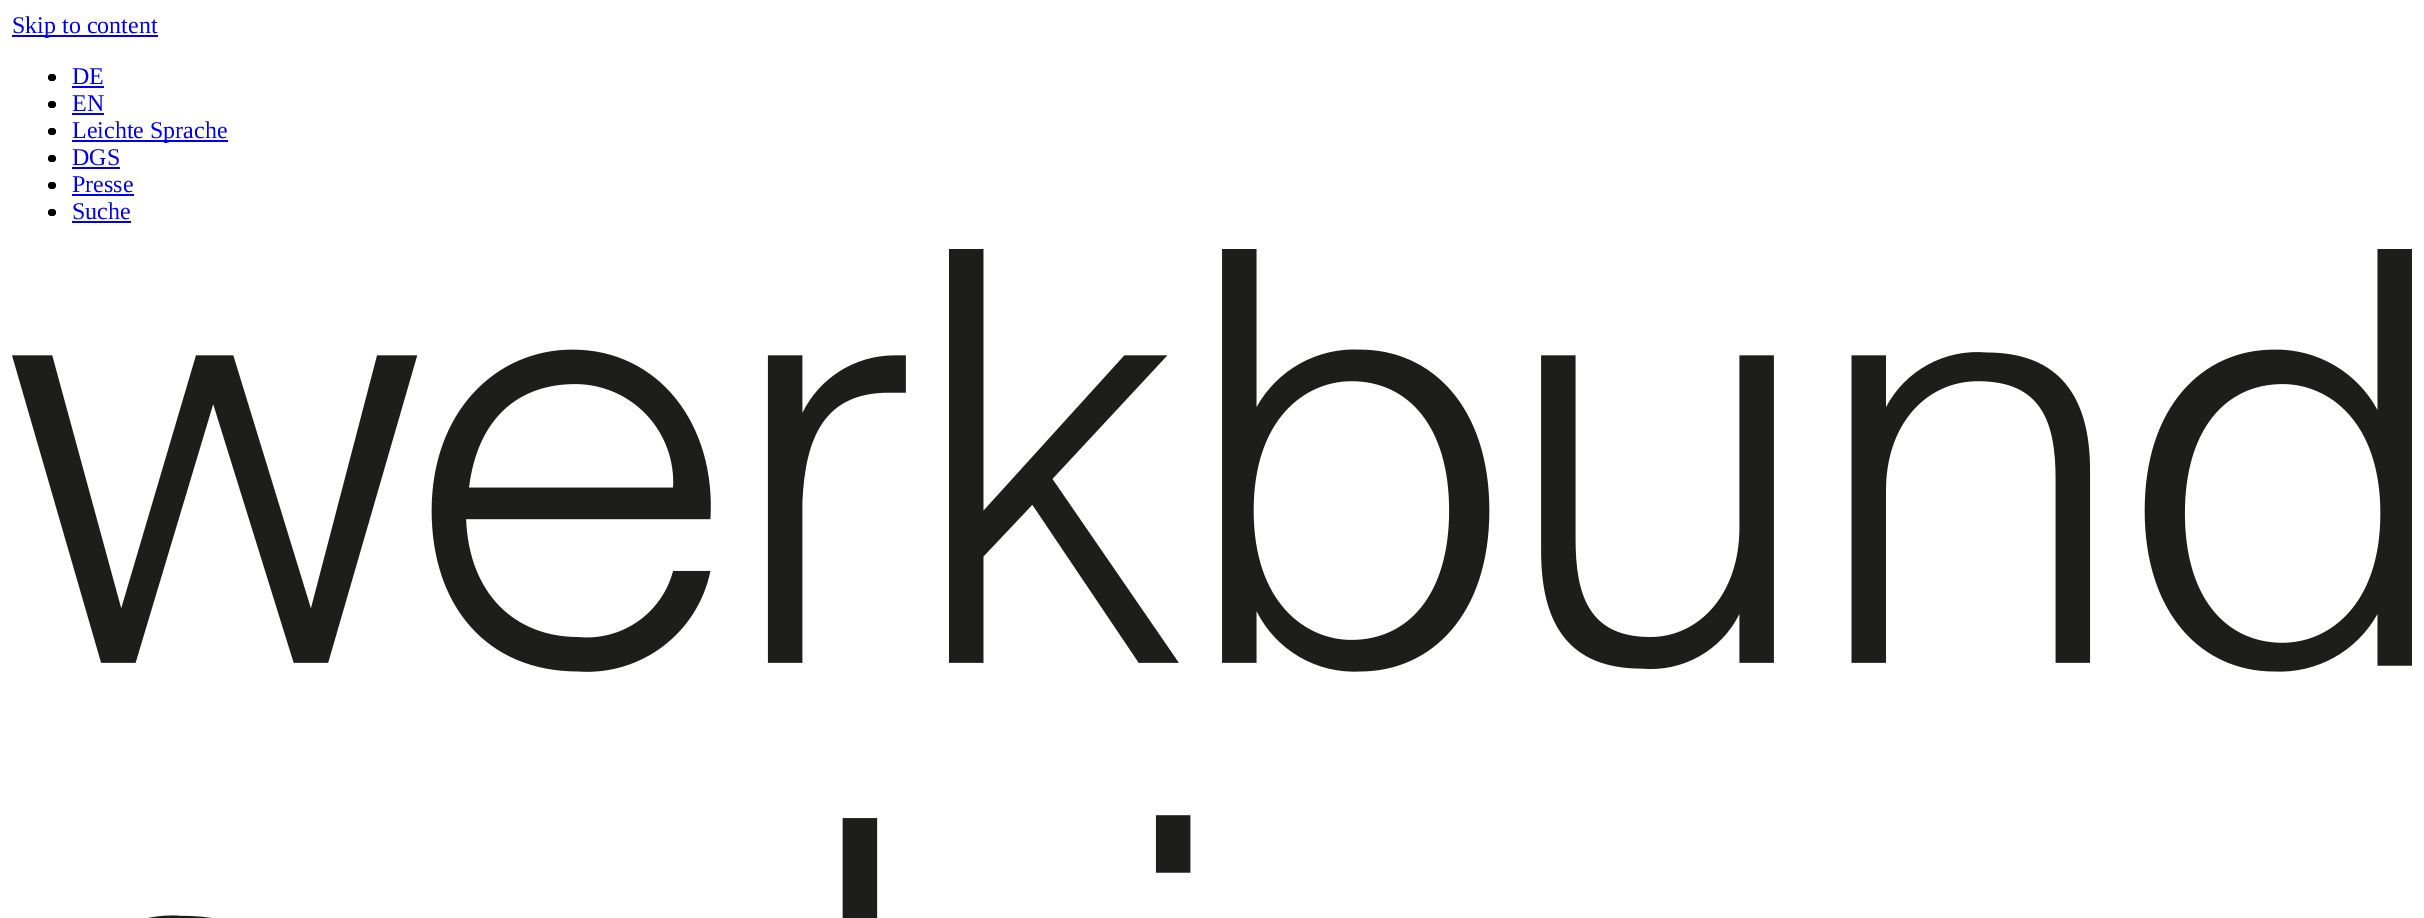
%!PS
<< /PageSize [2424 918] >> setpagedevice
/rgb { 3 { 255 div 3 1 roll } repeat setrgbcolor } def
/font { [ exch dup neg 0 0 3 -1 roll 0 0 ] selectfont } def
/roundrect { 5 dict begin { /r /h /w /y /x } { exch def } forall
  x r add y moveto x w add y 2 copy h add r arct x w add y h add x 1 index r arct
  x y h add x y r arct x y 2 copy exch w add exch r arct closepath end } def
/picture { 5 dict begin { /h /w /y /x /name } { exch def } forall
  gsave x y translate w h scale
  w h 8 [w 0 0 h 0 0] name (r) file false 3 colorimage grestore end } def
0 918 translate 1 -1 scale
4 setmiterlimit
255 255 255 rgb
0 0 2424 918 rectfill
0 0 238 rgb
12 35 146 2 rectfill
0 0 0 rgb
48 74 8 7 3.5 roundrect fill
0 0 238 rgb
72 86 32 2 rectfill
0 0 0 rgb
48 101 8 7 3.5 roundrect fill
0 0 238 rgb
72 113 32 2 rectfill
0 0 0 rgb
48 128 8 7 3.5 roundrect fill
0 0 238 rgb
72 140 156 2 rectfill
0 0 0 rgb
48 155 8 7 3.5 roundrect fill
0 0 238 rgb
72 167 48 2 rectfill
0 0 0 rgb
48 182 8 7 3.5 roundrect fill
0 0 238 rgb
72 194 62 2 rectfill
0 0 0 rgb
48 209 8 7 3.5 roundrect fill
0 0 238 rgb
72 221 59 2 rectfill
(img/1.rgb) 12 249 2400 669 picture
/LiberationSerif-Regular 24 font
[
  [(Skip to content) 12 33]
  [(DE) 72 84]
  [(EN) 72 111]
  [(Leichte Sprache) 72 138]
  [(DGS) 72 165]
  [(Presse) 72 192]
  [(Suche) 72 219]
] { aload pop moveto show } forall
showpage
